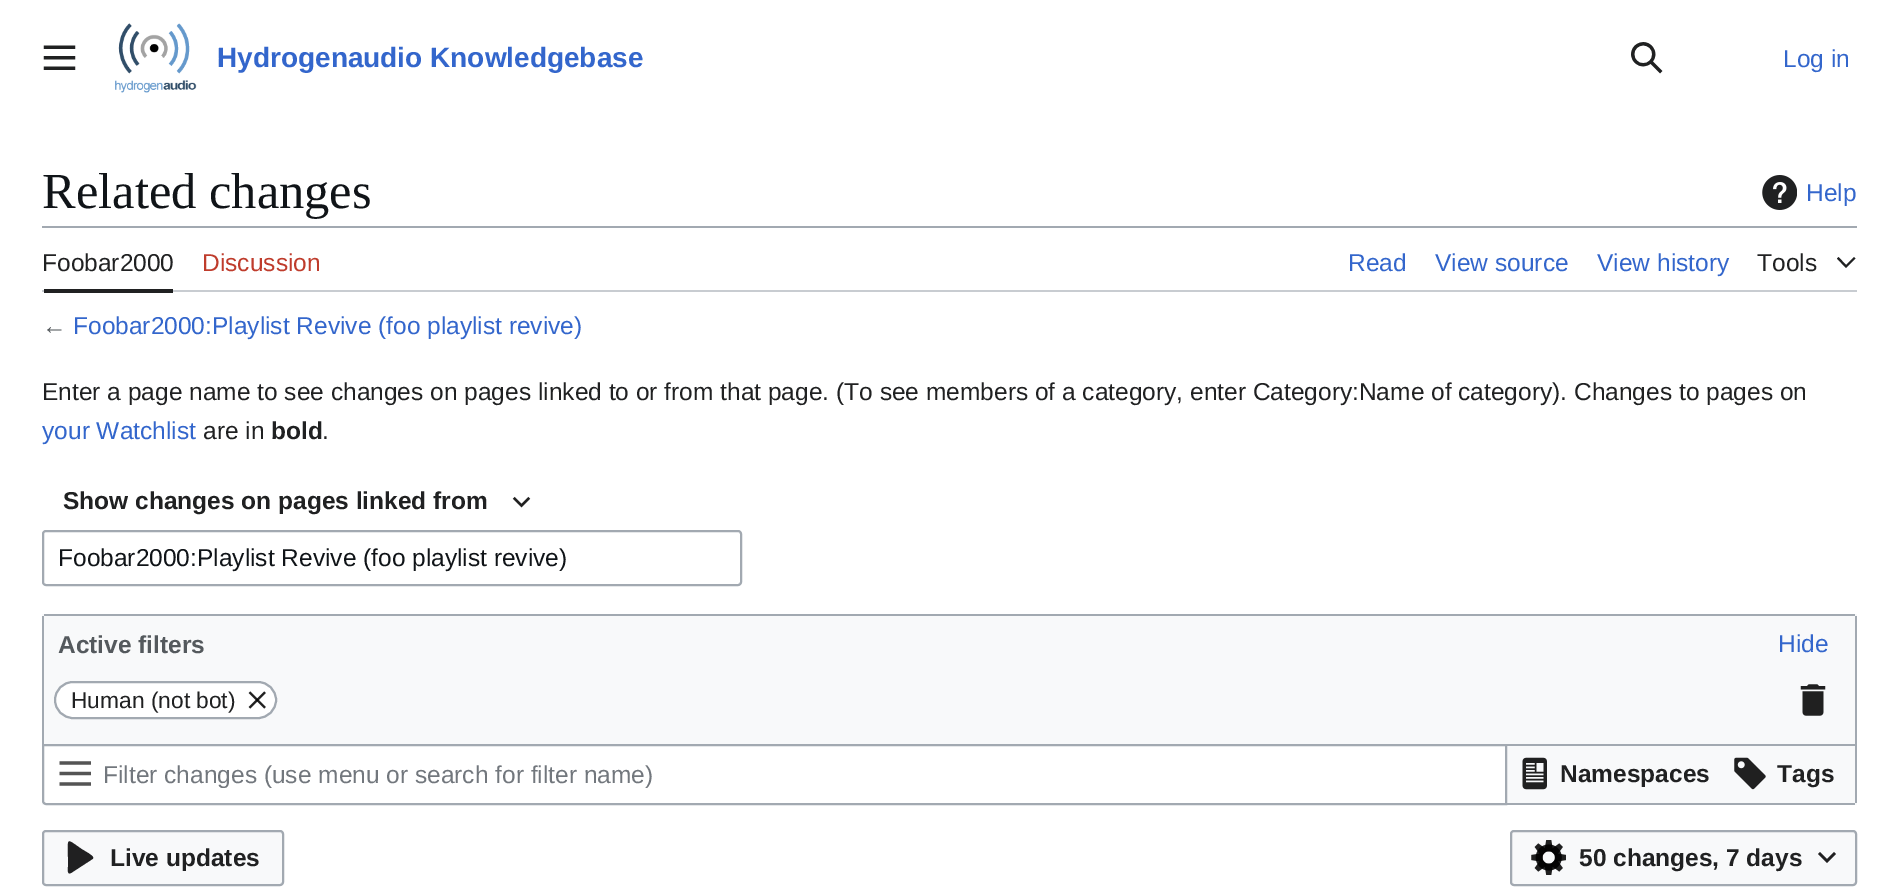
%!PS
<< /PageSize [1898 890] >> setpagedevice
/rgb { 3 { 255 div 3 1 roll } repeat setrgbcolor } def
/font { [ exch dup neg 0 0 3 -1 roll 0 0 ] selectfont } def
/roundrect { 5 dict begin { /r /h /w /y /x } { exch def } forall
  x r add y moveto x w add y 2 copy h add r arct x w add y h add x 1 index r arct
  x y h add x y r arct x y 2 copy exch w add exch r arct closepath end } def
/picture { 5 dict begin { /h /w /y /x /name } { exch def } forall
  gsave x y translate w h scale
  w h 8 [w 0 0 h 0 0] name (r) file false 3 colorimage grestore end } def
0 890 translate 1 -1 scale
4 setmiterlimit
255 255 255 rgb
0 0 1898 890 rectfill
(img/1.rgb) 43 45 33 25 picture
(img/2.rgb) 115 23 82 70 picture
(img/3.rgb) 1631 42 32 32 picture
(img/4.rgb) 1762 175 35 35 picture
162 169 177 rgb
42 226 1815 2 rectfill
200 204 209 rgb
42 290 moveto 42 292 lineto 1857 292 lineto 1857 229 lineto 1857 290 lineto closepath fill
32 33 34 rgb
44 289 129 4 rectfill
1854 257 moveto 1846 265 lineto 1838.5 257 lineto 1837 258.5 lineto 1846 268 lineto 1855.5 258.5 lineto closepath fill
(img/5.rgb) 512 496 19 12 picture
162 169 177 rgb
2 setlinewidth
43 531 698 54 3 roundrect stroke
[
  [42 614 1815 191 248 249 250]
  [44 614 1811 2 162 169 177]
  [1855 616 2 128 162 169 177]
  [42 616 2 128 162 169 177]
] { aload pop rgb rectfill } forall
255 255 255 rgb
55 682 221 36 18 roundrect gsave fill grestore
162 169 177 rgb
stroke
(img/6.rgb) 248 691 18 18 picture
(img/7.rgb) 1800 684 26 32 picture
255 255 255 rgb
43 745 moveto 1506 745 lineto 1506 804 lineto 46 804 lineto 44.5 804 43 802.5 43 801 curveto closepath gsave fill grestore
162 169 177 rgb
stroke
(img/8.rgb) 59 761 32 25 picture
[
  [1507 744 350 2 162 169 177]
  [1855 744 2 59 162 169 177]
  [1507 803 348 2 162 169 177]
] { aload pop rgb rectfill } forall
(img/9.rgb) 1522 757 25 33 picture
(img/10.rgb) 1734 757 32 33 picture
248 249 250 rgb
43 831 240 54 3 roundrect gsave fill grestore
162 169 177 rgb
stroke
32 32 33 rgb
71 873 moveto 69.5 873.5 lineto 67 873 68 868 68 867 curveto 68 857.5 lineto 68 837.5 65.5 838 81.5 849 curveto 89 853.5 lineto 89 854 95.5 857 92.5 859 curveto closepath fill
248 249 250 rgb
1511 831 345 54 3 roundrect gsave fill grestore
162 169 177 rgb
stroke
(img/11.rgb) 1531 840 35 35 picture
32 32 33 rgb
1834 852 moveto 1827 859 lineto 1820 852 lineto 1818 854 lineto 1827 863 lineto 1836 854 lineto closepath fill
/LiberationSans-Bold 28 font
51 102 204 rgb
217 67 moveto (Hydrogenaudio Knowledgebase) show
/LiberationSans-Regular 24.5 font
1783 67 moveto (Log in) show
/LiberationSerif-Regular 50.5 font
16 20 24 rgb
42 208 moveto (Related changes) show
/LiberationSans-Regular 24.5 font
51 102 204 rgb
1806 201 moveto (Help) show
32 33 34 rgb
42 271 moveto (Foobar2000) show
191 60 44 rgb
202 271 moveto (Discussion) show
51 102 204 rgb
[
  [(Read) 1348 271]
  [(View source) 1435 271]
  [(View history) 1597 271]
] { aload pop moveto show } forall
32 33 34 rgb
1757 271 moveto (Tools) show
84 89 93 rgb
42 334 moveto (←) show
51 102 204 rgb
73 334 moveto (Foobar2000:Playlist Revive \(foo playlist revive\)) show
32 33 34 rgb
42 400 moveto (Enter a page name to see changes on pages linked to or from that page. \(To see members of a category, enter Category:Name of category\). Changes to pages on) show
51 102 204 rgb
42 439 moveto (your Watchlist) show
32 33 34 rgb
203 439 moveto (are in) show
/LiberationSans-Bold 24.5 font
271 439 moveto (bold) show
/LiberationSans-Regular 24.5 font
322 439 moveto (.) show
/LiberationSans-Bold 24.5 font
63 509 moveto (Show changes on pages linked from) show
/LiberationSans-Regular 24.5 font
16 20 24 rgb
58 566 moveto (Foobar2000:Playlist Revive \(foo playlist revive\)) show
/LiberationSans-Bold 24.5 font
84 89 93 rgb
58 653 moveto (Active filters) show
/LiberationSans-Regular 24.5 font
51 102 204 rgb
1778 652 moveto (Hide) show
/LiberationSans-Regular 22.75 font
32 33 34 rgb
71 708 moveto (Human \(not bot\)) show
gsave
103 760 1388 28 rectclip
/LiberationSans-Regular 24.5 font
114 119 125 rgb
103 783 moveto (Filter changes \(use menu or search for filter name\)) show
grestore
/LiberationSans-Bold 24.5 font
[
  [(Namespaces) 1560 782]
  [(Tags) 1777 782]
  [(Live updates) 110 866]
  [(50 changes, 7 days) 1579 866]
] { aload pop moveto show } forall
showpage
